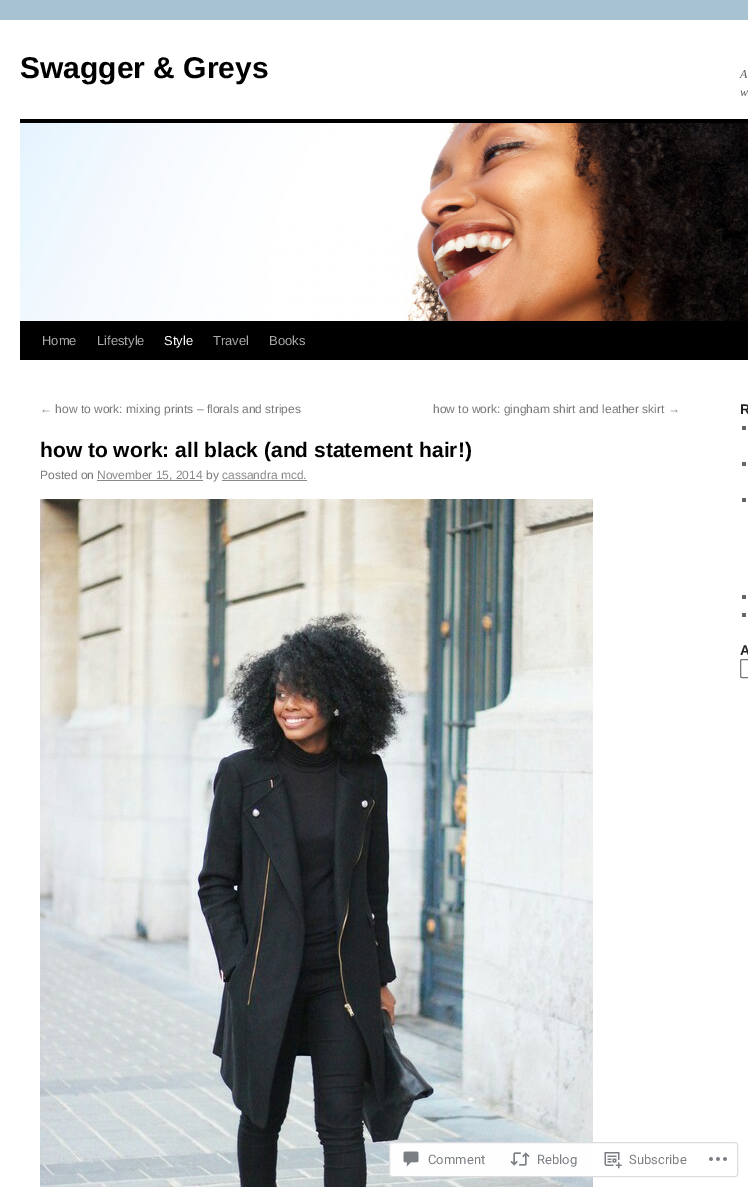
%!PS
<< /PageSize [748 1187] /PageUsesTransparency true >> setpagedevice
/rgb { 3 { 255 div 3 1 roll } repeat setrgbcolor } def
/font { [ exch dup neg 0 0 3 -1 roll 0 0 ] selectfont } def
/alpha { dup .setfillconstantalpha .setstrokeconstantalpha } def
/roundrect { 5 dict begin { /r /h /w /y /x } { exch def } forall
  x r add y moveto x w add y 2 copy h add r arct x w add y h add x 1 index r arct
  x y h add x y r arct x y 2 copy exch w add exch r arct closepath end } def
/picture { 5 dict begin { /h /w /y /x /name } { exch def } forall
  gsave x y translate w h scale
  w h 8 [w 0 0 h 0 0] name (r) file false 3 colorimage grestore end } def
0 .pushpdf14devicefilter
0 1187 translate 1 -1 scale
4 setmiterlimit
167 194 209 rgb
0 0 748 1187 rectfill
[
  [0 20 748 1167 255 255 255]
  [20 119 728 4 0 0 0]
  [20 321 728 39 0 0 0]
] { aload pop rgb rectfill } forall
(img/1.rgb) 20 123 728 198 picture
136 136 136 rgb
97 480 106 1 rectfill
222 480 85 1 rectfill
(img/2.rgb) 40 499 553 688 picture
[
  [742 426 4 4 102 102 102]
  [742 462 4 4 102 102 102]
  [742 498 4 4 102 102 102]
  [742 595 4 4 102 102 102]
  [742 613 4 4 102 102 102]
] { aload pop rgb rectfill } forall
118 118 118 rgb
740.5 659.5 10 18 1.5 roundrect stroke
0.98 alpha
255 255 255 rgb
389 1142 349 35 3 roundrect fill
220 220 222 rgb
389.5 1142.5 348 34 2.5 roundrect stroke
1 alpha
(img/3.rgb) 403 1151 16 16 picture
(img/4.rgb) 510 1152 20 14 picture
(img/5.rgb) 604 1152 18 17 picture
(img/6.rgb) 709 1157 18 4 picture
/LiberationSans-Bold 30 font
0 0 0 rgb
20 78 moveto (Swagger & Greys) show
/LiberationSerif-Italic 12 font
89 89 89 rgb
740 78 moveto (A) show
740 96 moveto (w) show
/LiberationSans-Regular 13 font
170 170 170 rgb
42 345 moveto (Home) show
97 345 moveto (Lifestyle) show
255 255 255 rgb
164 345 moveto (Style) show
170 170 170 rgb
213 345 moveto (Travel) show
269 345 moveto (Books) show
/LiberationSans-Regular 12 font
119 119 119 rgb
40 413 moveto (← how to work: mixing prints – florals and stripes) show
433 413 moveto (how to work: gingham shirt and leather skirt →) show
/LiberationSans-Bold 21 font
0 0 0 rgb
40 457 moveto (how to work: all black \(and statement hair!\)) show
/LiberationSans-Regular 12 font
119 119 119 rgb
40 479 moveto (Posted on) show
136 136 136 rgb
97 479 moveto (November 15, 2014) show
119 119 119 rgb
206 479 moveto (by) show
136 136 136 rgb
222 479 moveto (cassandra mcd.) show
/LiberationSans-Bold 14 font
34 34 34 rgb
740 414 moveto (R) show
740 655 moveto (A) show
/Roboto-Regular 13 font
123 127 132 rgb
[
  [(Comment) 428 1164]
  [(Reblog) 537 1164]
  [(Subscribe) 629 1164]
] { aload pop moveto show } forall
.poppdf14devicefilter showpage
